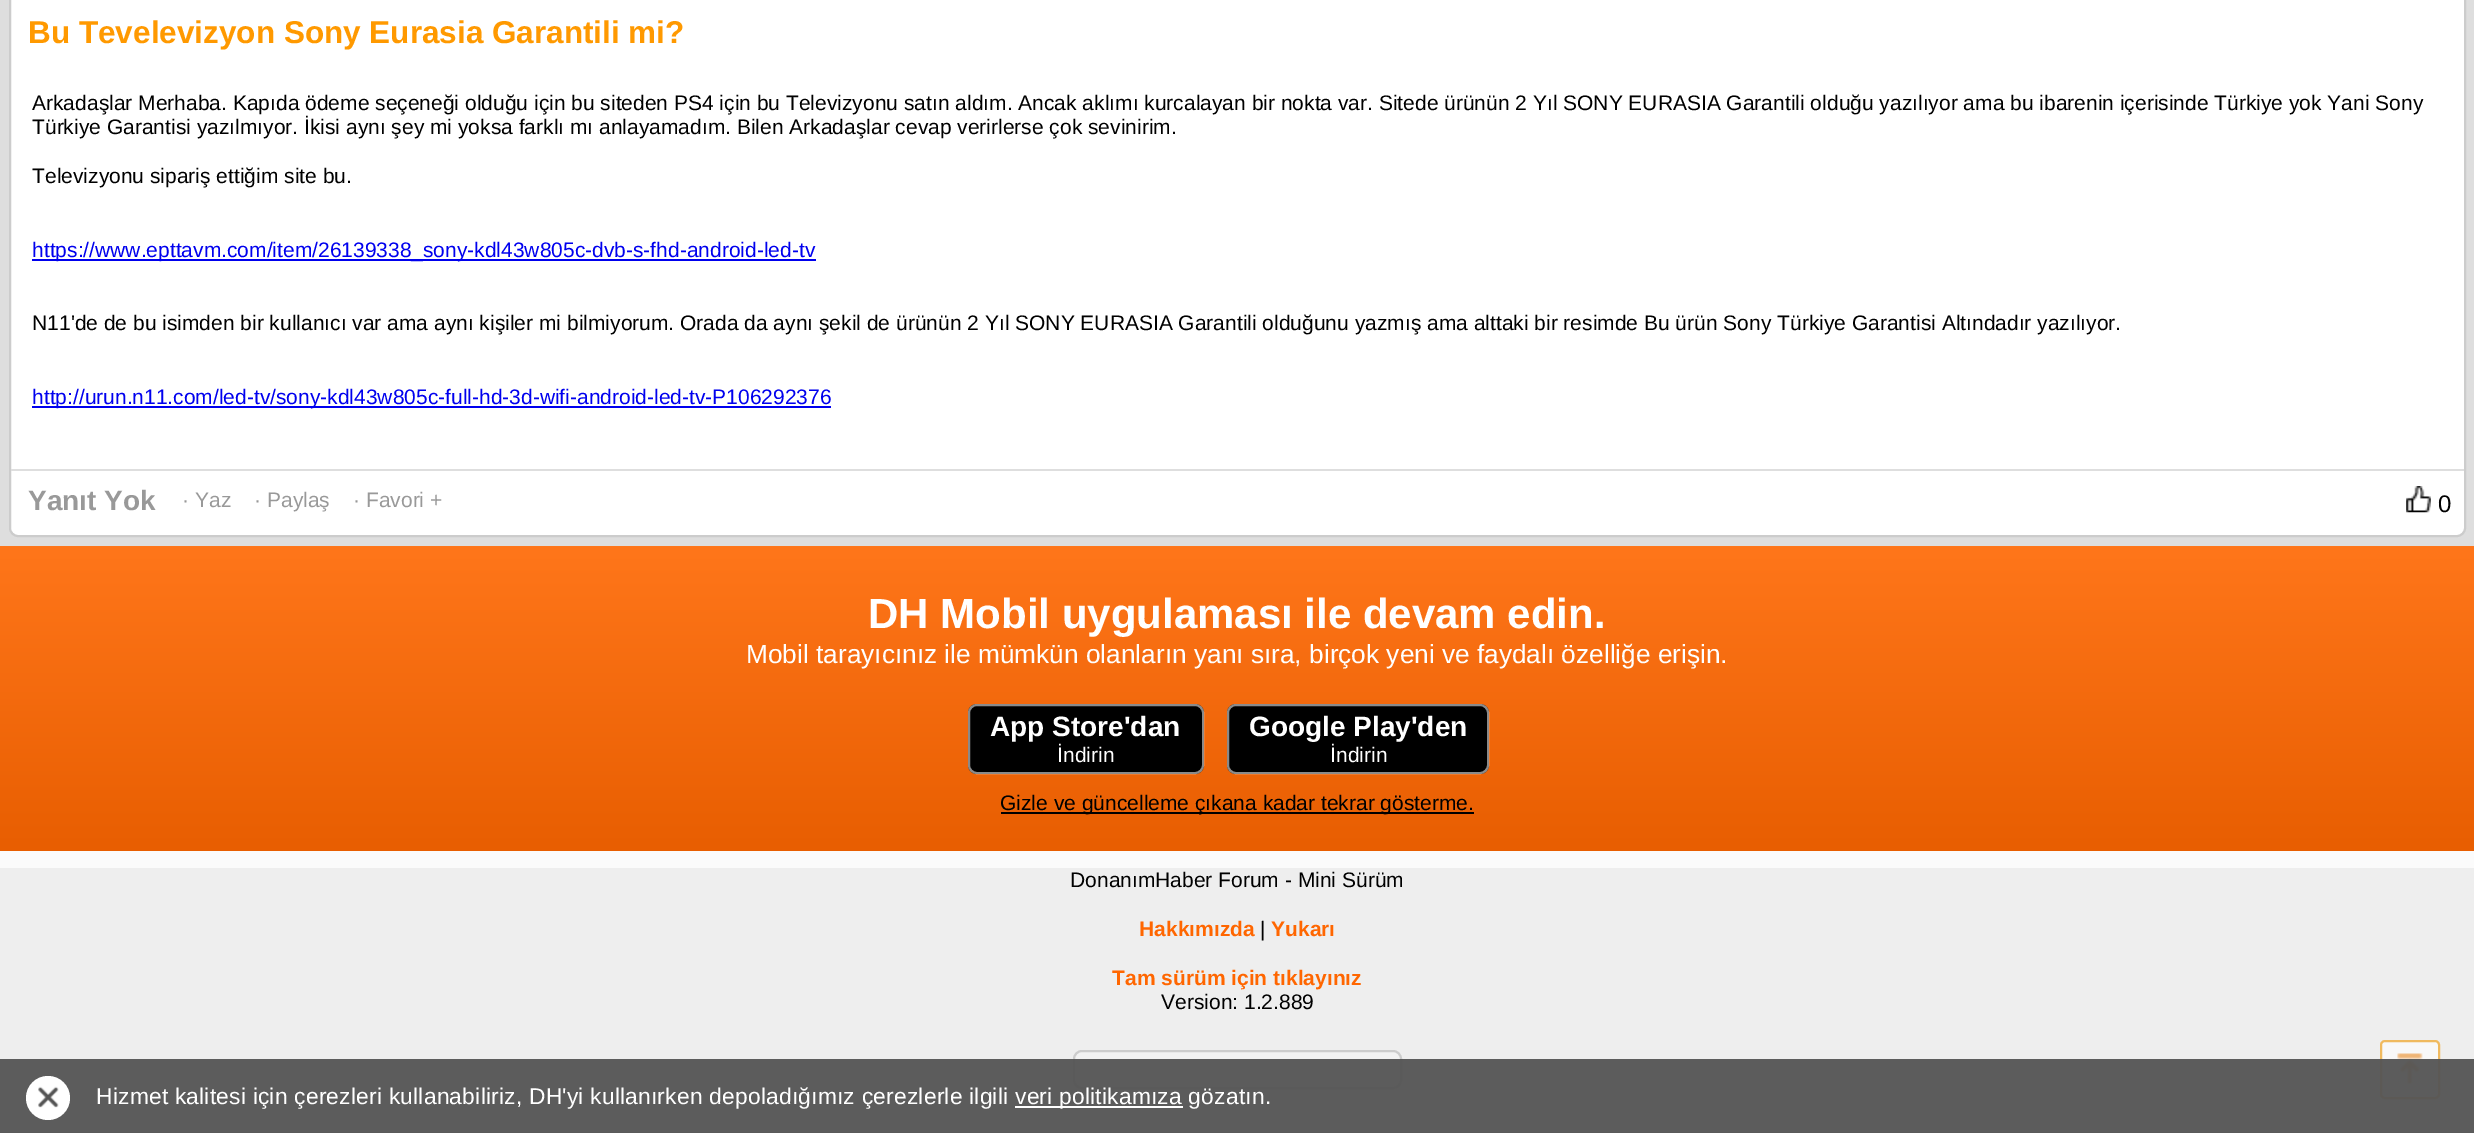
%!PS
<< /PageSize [2474 1133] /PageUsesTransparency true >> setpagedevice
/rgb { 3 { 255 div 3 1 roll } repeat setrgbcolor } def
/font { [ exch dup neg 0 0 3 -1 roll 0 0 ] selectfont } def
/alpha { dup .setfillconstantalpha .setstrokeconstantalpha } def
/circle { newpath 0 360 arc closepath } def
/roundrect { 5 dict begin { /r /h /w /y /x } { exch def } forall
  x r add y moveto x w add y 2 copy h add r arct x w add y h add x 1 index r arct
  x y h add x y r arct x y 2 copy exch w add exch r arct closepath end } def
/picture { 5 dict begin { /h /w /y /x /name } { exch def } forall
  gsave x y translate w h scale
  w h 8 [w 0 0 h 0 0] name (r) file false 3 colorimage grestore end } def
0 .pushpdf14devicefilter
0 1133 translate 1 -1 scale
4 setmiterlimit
222 222 222 rgb
0 0 2474 1133 rectfill
255 255 255 rgb
10 -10 2455 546 8 roundrect gsave fill grestore
204 204 204 rgb
2 setlinewidth
stroke
[
  [32 259 784 2 0 0 238]
  [32 406 799 2 0 0 238]
  [11 469 2453 2 222 222 222]
] { aload pop rgb rectfill } forall
(img/1.rgb) 2406 486 25 27 picture
gsave 0 546 moveto 2474 546 lineto 2474 851 lineto 0 851 lineto closepath clip newpath
<< /ShadingType 2 /ColorSpace /DeviceRGB /Coords [1237 851 1237 546] /Extend [true true] /Function << /FunctionType 2 /Domain [0 1] /C0 [0.91 0.369 0.004] /C1 [1 0.463 0.102] /N 1 >> >> shfill grestore
251 251 251 rgb
0 851 2474 17 rectfill
0 0 0 rgb
968 704 236 70 9 roundrect fill
0.54 alpha
255 255 255 rgb
969 705 234 68 8 roundrect stroke
1 alpha
0 0 0 rgb
1227 704 262 70 9 roundrect fill
0.54 alpha
255 255 255 rgb
1228 705 260 68 8 roundrect stroke
1 alpha
[
  [1001 812 473 2 0 0 0]
  [0 868 2474 264 238 238 238]
  [0 1132 2474 1 204 204 204]
] { aload pop rgb rectfill } forall
242 242 242 rgb
1074 1051 327 37 8 roundrect gsave fill grestore
204 204 204 rgb
stroke
248 248 248 rgb
2381 1041 58 57 4 roundrect gsave fill grestore
240 186 95 rgb
stroke
(img/2.rgb) 2397 1053 26 31 picture
0.95 alpha
84 84 84 rgb
0 1059 2474 74 rectfill
1 alpha
255 255 255 rgb
48 1098 22 circle fill
(img/3.rgb) 38 1086 21 22 picture
1015 1106 168 2 rectfill
/LiberationSans-Bold 31.5 font
255 153 0 rgb
28 43 moveto (Bu Tevelevizyon Sony Eurasia Garantili mi?) show
/LiberationSans-Regular 21 font
0 0 0 rgb
[
  [(Arkadaşlar Merhaba. Kapıda ödeme seçeneği olduğu için bu siteden PS4 için bu Televizyonu satın aldım. Ancak aklımı kurcalayan bir nokta var. Sitede ürünün 2 Yıl SONY EURASIA Garantili olduğu yazılıyor ama bu ibarenin içerisinde Türkiye yok Yani Sony) 32 110]
  [(Türkiye Garantisi yazılmıyor. İkisi aynı şey mi yoksa farklı mı anlayamadım. Bilen Arkadaşlar cevap verirlerse çok sevinirim.) 32 134]
  [(Televizyonu sipariş ettiğim site bu.) 32 183]
] { aload pop moveto show } forall
0 0 238 rgb
32 257 moveto (https://www.epttavm.com/item/26139338_sony-kdl43w805c-dvb-s-fhd-android-led-tv) show
0 0 0 rgb
32 330 moveto (N11'de de bu isimden bir kullanıcı var ama aynı kişiler mi bilmiyorum. Orada da aynı şekil de ürünün 2 Yıl SONY EURASIA Garantili olduğunu yazmış ama alttaki bir resimde Bu ürün Sony Türkiye Garantisi Altındadır yazılıyor.) show
0 0 238 rgb
32 404 moveto (http://urun.n11.com/led-tv/sony-kdl43w805c-full-hd-3d-wifi-android-led-tv-P106292376) show
/LiberationSans-Bold 28 font
153 153 153 rgb
28 510 moveto (Yanıt Yok) show
/LiberationSans-Regular 21 font
[
  [(· Yaz) 182 507]
  [(· Paylaş) 254 507]
  [(· Favori +) 353 507]
] { aload pop moveto show } forall
/LiberationSans-Regular 24 font
0 0 0 rgb
2438 512 moveto (0) show
/LiberationSans-Bold 42 font
255 255 255 rgb
868 628 moveto (DH Mobil uygulaması ile devam edin.) show
/LiberationSans-Regular 26.25 font
746 663 moveto (Mobil tarayıcınız ile mümkün olanların yanı sıra, birçok yeni ve faydalı özelliğe erişin.) show
/LiberationSans-Bold 28 font
990 736 moveto (App Store'dan) show
/LiberationSans-Regular 21 font
1057 762 moveto (İndirin) show
/LiberationSans-Bold 28 font
1249 736 moveto (Google Play'den) show
/LiberationSans-Regular 21 font
1330 762 moveto (İndirin) show
0 0 0 rgb
1000 810 moveto (Gizle ve güncelleme çıkana kadar tekrar gösterme.) show
1070 887 moveto (DonanımHaber Forum - Mini Sürüm) show
/LiberationSans-Bold 21 font
255 102 0 rgb
1139 936 moveto (Hakkımızda) show
/LiberationSans-Regular 21 font
0 0 0 rgb
1260 936 moveto (|) show
/LiberationSans-Bold 21 font
255 102 0 rgb
1271 936 moveto (Yukarı) show
1112 985 moveto (Tam sürüm için tıklayınız) show
/LiberationSans-Regular 21 font
0 0 0 rgb
1161 1009 moveto (Version: 1.2.889) show
/LiberationSans-Regular 22.75 font
255 255 255 rgb
96 1104 moveto 0.23 0 (Hizmet kalitesi için çerezleri kullanabiliriz, DH'yi kullanırken depoladığımız çerezlerle ilgili) ashow
1015 1104 moveto 0.23 0 (veri politikamıza gözatın.) ashow
.poppdf14devicefilter showpage
